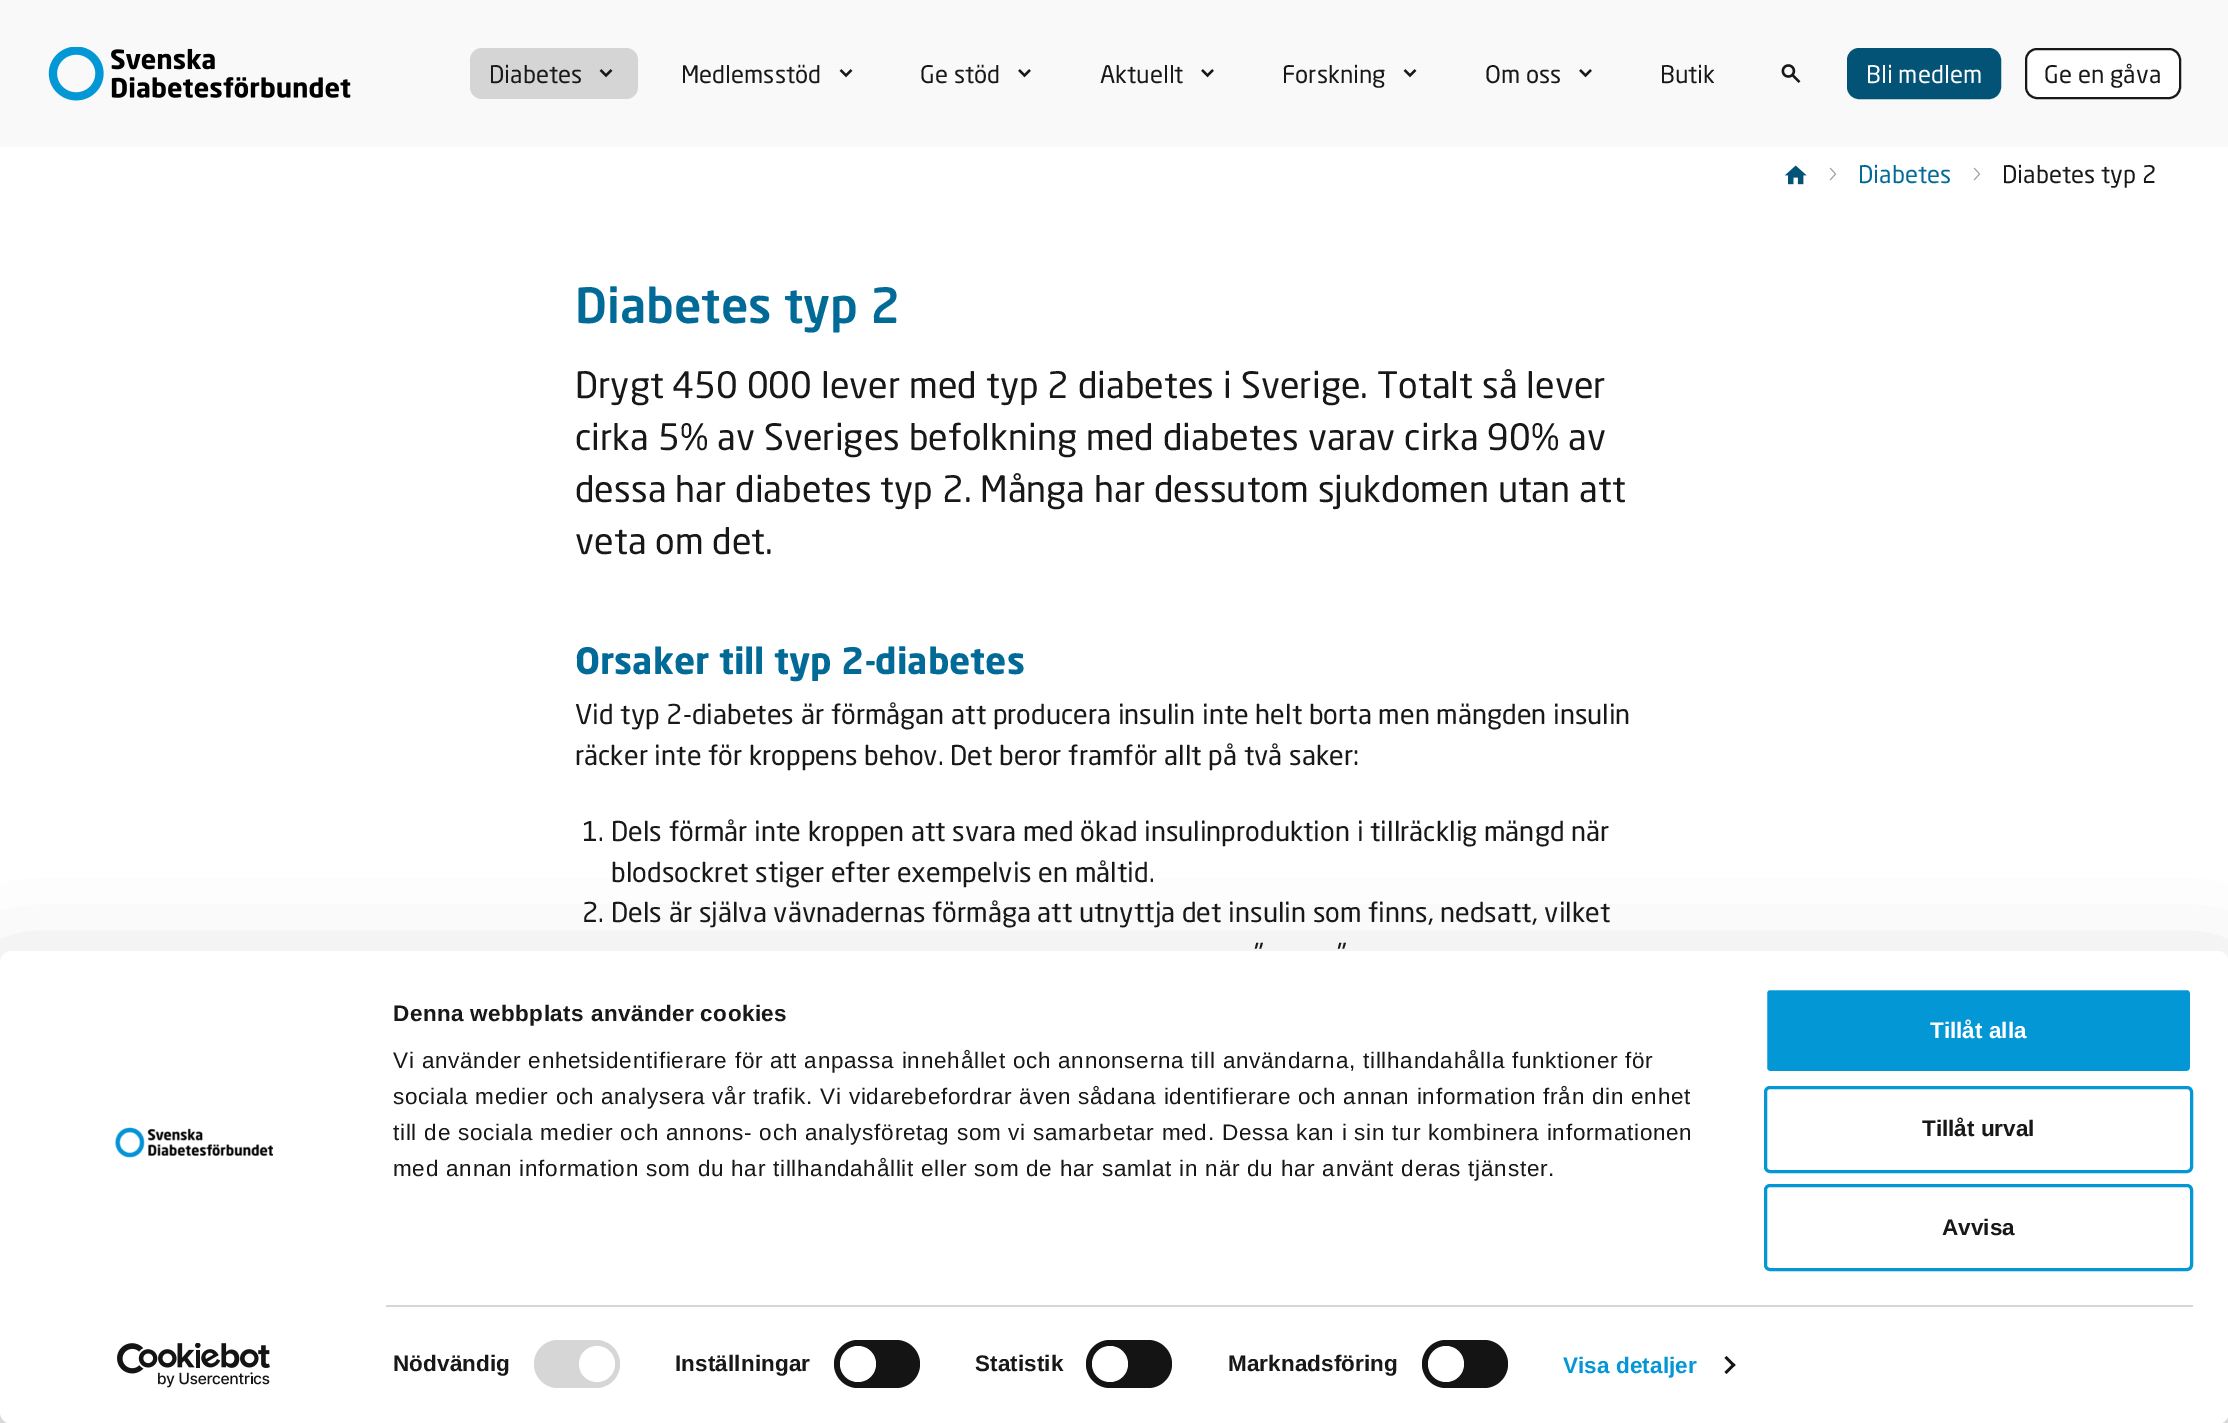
%!PS
<< /PageSize [2228 1423] /PageUsesTransparency true >> setpagedevice
/rgb { 3 { 255 div 3 1 roll } repeat setrgbcolor } def
/font { [ exch dup neg 0 0 3 -1 roll 0 0 ] selectfont } def
/alpha { dup .setfillconstantalpha .setstrokeconstantalpha } def
/circle { newpath 0 360 arc closepath } def
/roundrect { 5 dict begin { /r /h /w /y /x } { exch def } forall
  x r add y moveto x w add y 2 copy h add r arct x w add y h add x 1 index r arct
  x y h add x y r arct x y 2 copy exch w add exch r arct closepath end } def
/shadow { 12 dict begin { /a /b /q /h /w /y /x } { exch def } forall gsave /was 0 def
  9 -2 -9 { dup b mul 4 div /e exch def 1 sub .425 mul 2.718 exch exp 1 add a .99 .min exch div /now exch def
    1 1 now sub 1 was sub div sub alpha /was now def
    w h .min e 2 mul add 0 gt { x e sub y e sub w e 2 mul add h e 2 mul add
      q e add b .6 mul add w h .min 2 div e add .min 0 .max roundrect fill } if } for grestore end } def
/picture { 5 dict begin { /h /w /y /x /name } { exch def } forall
  gsave x y translate w h scale
  w h 8 [w 0 0 h 0 0] name (r) file false 3 colorimage grestore end } def
0 .pushpdf14devicefilter
0 1423 translate 1 -1 scale
4 setmiterlimit
255 255 255 rgb
0 0 2228 1423 rectfill
249 249 249 rgb
0 0 2228 147 rectfill
(img/1.rgb) 48 47 303 54 picture
213 213 213 rgb
470 48 168 51 12 roundrect fill
(img/2.rgb) 599 69 14 9 picture
(img/3.rgb) 839 69 14 9 picture
(img/4.rgb) 1018 69 13 9 picture
(img/4.rgb) 1201 69 13 9 picture
(img/3.rgb) 1403 69 14 9 picture
(img/4.rgb) 1579 69 13 9 picture
(img/5.rgb) 1781 64 20 19 picture
2 83 118 rgb
1848 49 152 49 11 roundrect gsave fill grestore
2 setlinewidth
stroke
255 255 255 rgb
2026 49 154 49 11 roundrect gsave fill grestore
24 24 24 rgb
stroke
(img/6.rgb) 1784 165 23 20 picture
(img/7.rgb) 1829 167 8 14 picture
(img/7.rgb) 1973 167 8 14 picture
0 0 0 rgb
0 996 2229 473 12 52.5 0.3 shadow
255 255 255 rgb
0 951 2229 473 12 roundrect fill
(img/8.rgb) 115 1127 158 31 picture
(img/9.rgb) 117 1343 153 45 picture
214 214 214 rgb
386 1305 1807 2 rectfill
534 1340 86 48 24 roundrect fill
255 255 255 rgb
597 1364 18 circle fill
20 20 20 rgb
834 1340 86 48 24 roundrect fill
255 255 255 rgb
858 1364 18 circle fill
20 20 20 rgb
1086 1340 86 48 24 roundrect fill
255 255 255 rgb
1110 1364 18 circle fill
20 20 20 rgb
1422 1340 86 48 24 roundrect fill
255 255 255 rgb
1446 1364 18 circle fill
20 20 20 rgb
1726.5 1356 moveto 1735.5 1365 lineto 1733.5 1367 lineto 1724.5 1358 lineto closepath fill
1733.5 1363 moveto 1735.5 1365 lineto 1726.5 1374 lineto 1724.5 1372 lineto closepath fill
3 151 214 rgb
1765.5 988.5 426 84 4.5 roundrect gsave fill grestore
255 255 255 rgb
3 setlinewidth
stroke
3 151 214 rgb
1765.5 1087.5 426 84 4.5 roundrect stroke
1765.5 1185.5 426 84 4.5 roundrect stroke
/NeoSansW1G-Regular 24 font
24 24 24 rgb
[
  [(Diabetes) 489 83]
  [(Medlemsstöd) 681 83]
  [(Ge stöd) 920 83]
  [(Aktuellt) 1100 83]
  [(Forskning) 1282 83]
  [(Om oss) 1485 83]
  [(Butik) 1660 83]
] { aload pop moveto show } forall
255 255 255 rgb
1866 83 moveto (Bli medlem) show
24 24 24 rgb
2044 83 moveto (Ge en gåva) show
2 106 150 rgb
1858 183 moveto (Diabetes) show
24 24 24 rgb
2002 183 moveto (Diabetes typ 2) show
/NeoSansW1G-Medium 48 font
2 106 150 rgb
575 323 moveto (Diabetes typ 2) show
/NeoSansW1G-Regular 36 font
24 24 24 rgb
[
  [(Drygt 450 000 lever med typ 2 diabetes i Sverige. Totalt så lever) 575 398]
  [(cirka 5% av Sveriges befolkning med diabetes varav cirka 90% av) 575 450]
  [(dessa har diabetes typ 2. Många har dessutom sjukdomen utan att) 575 502]
  [(veta om det.) 575 554]
] { aload pop moveto show } forall
/NeoSansW1G-Bold 36 font
2 106 150 rgb
575 674 moveto (Orsaker till typ 2-diabetes) show
/NeoSansW1G-Regular 27 font
24 24 24 rgb
[
  [(Vid typ 2-diabetes är förmågan att producera insulin inte helt borta men mängden insulin) 575 724]
  [(räcker inte för kroppens behov. Det beror framför allt på två saker:) 575 765]
  [(1. Dels förmår inte kroppen att svara med ökad insulinproduktion i tillräcklig mängd när) 582 841]
  [(blodsockret stiger efter exempelvis en måltid.) 611 882]
  [(2. Dels är själva vävnadernas förmåga att utnyttja det insulin som finns, nedsatt, vilket) 582 922]
  [(") 1254 963]
  [(") 1337 963]
] { aload pop moveto show } forall
/LiberationSans-Bold 22.5 font
393 1021 moveto 0.4 0 (Denna webbplats använder cookies) ashow
/LiberationSans-Regular 22.5 font
393 1068 moveto 0.75 0 (Vi använder enhetsidentifierare för att anpassa innehållet och annonserna till användarna, tillhandahålla funktioner för) ashow
393 1104 moveto 0.75 0 (sociala medier och analysera vår trafik. Vi vidarebefordrar även sådana identifierare och annan information från din enhet) ashow
393 1140 moveto 0.75 0 (till de sociala medier och annons- och analysföretag som vi samarbetar med. Dessa kan i sin tur kombinera informationen) ashow
393 1176 moveto 0.75 0 (med annan information som du har tillhandahållit eller som de har samlat in när du har använt deras tjänster.) ashow
/LiberationSans-Bold 22.5 font
393 1371 moveto 0.1 0 (Nödvändig) ashow
675 1371 moveto 0.1 0 (Inställningar) ashow
975 1371 moveto 0.1 0 (Statistik) ashow
1228 1371 moveto 0.1 0 (Marknadsföring) ashow
3 151 214 rgb
1563 1373 moveto 0.1 0 (Visa detaljer) ashow
255 255 255 rgb
1930 1038 moveto (Tillåt alla) show
24 24 24 rgb
1922 1136 moveto (Tillåt urval) show
1942 1235 moveto (Avvisa) show
.poppdf14devicefilter showpage
